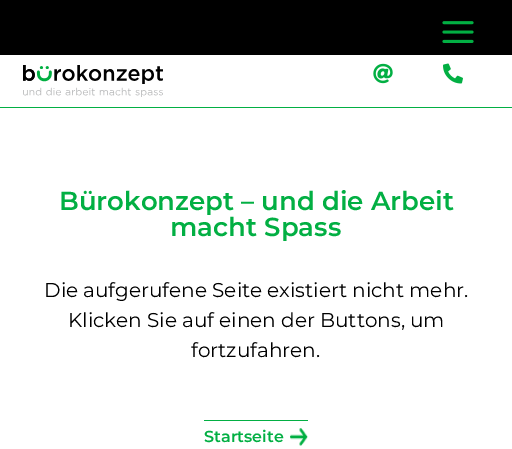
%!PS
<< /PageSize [512 449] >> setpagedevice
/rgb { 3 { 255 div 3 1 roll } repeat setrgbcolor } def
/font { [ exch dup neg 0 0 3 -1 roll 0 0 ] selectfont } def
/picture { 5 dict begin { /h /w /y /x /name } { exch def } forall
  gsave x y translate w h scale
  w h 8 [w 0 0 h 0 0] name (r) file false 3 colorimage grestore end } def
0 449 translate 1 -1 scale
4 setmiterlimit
255 255 255 rgb
0 0 512 449 rectfill
0 0 0 rgb
0 0 512 55 rectfill
(img/1.rgb) 442 21 32 22 picture
2 175 67 rgb
0 107 512 1 rectfill
(img/2.rgb) 23 65 140 32 picture
(img/3.rgb) 373 63 20 21 picture
(img/4.rgb) 443 63 20 21 picture
(img/5.rgb) 290 428 18 18 picture
204 420 104 1 rectfill
/Montserrat-SemiBold 26 font
59 210 moveto (Bürokonzept – und die Arbeit) show
170 236 moveto (macht Spass) show
/Montserrat-Regular 20 font
0 0 0 rgb
[
  [(Die aufgerufene Seite existiert nicht mehr.) 44 297]
  [(Klicken Sie auf einen der Buttons, um) 68 327]
  [(fortzufahren.) 191 357]
] { aload pop moveto show } forall
/Montserrat-SemiBold 16 font
2 175 67 rgb
204 442 moveto (Startseite) show
showpage
